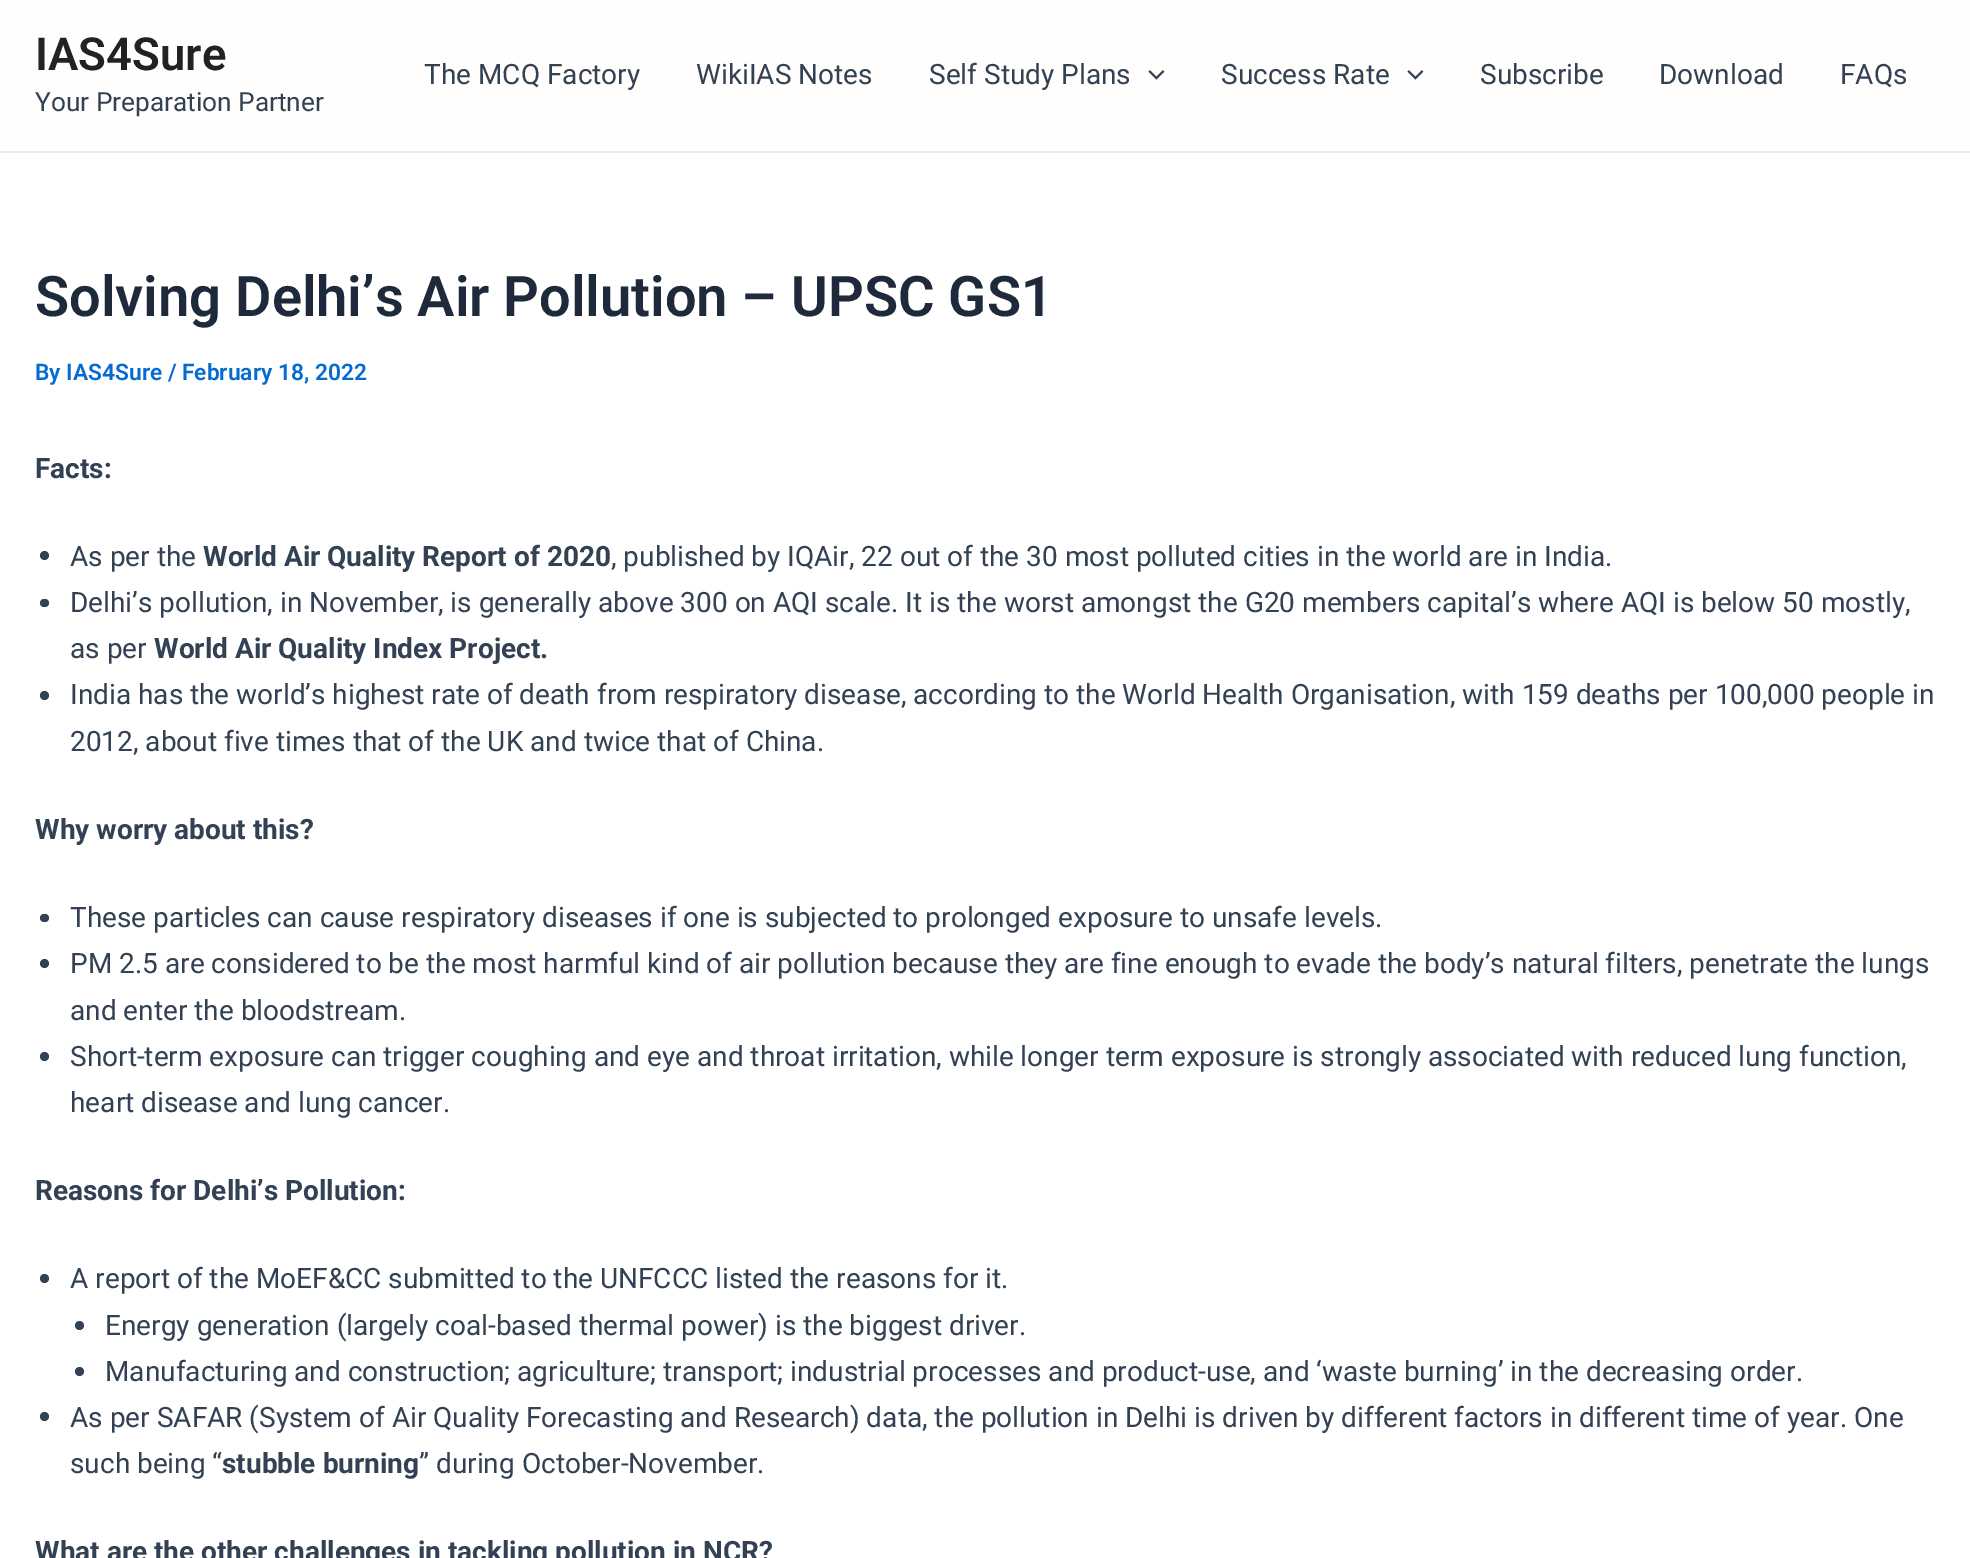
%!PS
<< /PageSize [1970 1558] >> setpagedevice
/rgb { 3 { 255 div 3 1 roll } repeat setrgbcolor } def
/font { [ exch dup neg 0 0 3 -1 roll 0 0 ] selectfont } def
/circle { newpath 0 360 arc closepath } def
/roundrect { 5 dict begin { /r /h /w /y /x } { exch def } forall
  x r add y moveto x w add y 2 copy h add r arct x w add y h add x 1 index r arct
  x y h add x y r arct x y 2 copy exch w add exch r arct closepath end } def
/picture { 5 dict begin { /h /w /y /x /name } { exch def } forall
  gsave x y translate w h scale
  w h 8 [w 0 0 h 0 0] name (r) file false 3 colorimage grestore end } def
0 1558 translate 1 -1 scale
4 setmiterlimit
255 255 255 rgb
0 0 1970 1558 rectfill
255 254 252 rgb
0 0 1970 151 rectfill
234 234 234 rgb
0 151 1970 2 rectfill
(img/1.rgb) 1148 70 17 10 picture
(img/1.rgb) 1407 70 17 10 picture
51 65 85 rgb
44.5 555.5 4.5 circle fill
40 599 9 8 4 roundrect fill
44.5 695.5 4.5 circle fill
40 914 9 8 4 roundrect fill
44.5 963.5 4.5 circle fill
44.5 1056.5 4.5 circle fill
44.5 1278.5 4.5 circle fill
79.5 1325.5 4.5 circle fill
79.5 1371.5 4.5 circle fill
44.5 1416.5 4.5 circle fill
/Roboto-SemiBold 45.5 font
34 34 34 rgb
35 70 moveto (IAS4Sure) show
/Roboto-Regular 26.25 font
51 65 85 rgb
35 111 moveto (Your Preparation Partner) show
/Roboto-Regular 28 font
[
  [(The MCQ Factory) 424 84]
  [(WikiIAS Notes) 696 84]
  [(Self Study Plans) 929 84]
  [(Success Rate) 1221 84]
  [(Subscribe) 1480 84]
  [(Download) 1659 84]
  [(FAQs) 1840 84]
] { aload pop moveto show } forall
/Roboto-SemiBold 56 font
30 41 59 rgb
35 316 moveto (Solving Delhi’s Air Pollution – UPSC GS1) show
/Roboto-SemiBold 22.75 font
4 107 210 rgb
35 380 moveto (By IAS4Sure / February 18, 2022) show
/Roboto-Bold 28 font
51 65 85 rgb
35 478 moveto (Facts:) show
/Roboto-Regular 28 font
70 566 moveto (As per the) show
/Roboto-Bold 28 font
203 566 moveto (World Air Quality Report of 2020) show
/Roboto-Regular 28 font
[
  [(, published by IQAir, 22 out of the 30 most polluted cities in the world are in India.) 611 566]
  [(Delhi’s pollution, in November, is generally above 300 on AQI scale. It is the worst amongst the G20 members capital’s where AQI is below 50 mostly,) 70 612]
  [(as per) 70 658]
] { aload pop moveto show } forall
/Roboto-Bold 28 font
154 658 moveto (World Air Quality Index Project.) show
/Roboto-Regular 28 font
70 704 moveto (India has the world’s highest rate of death from respiratory disease, according to the World Health Organisation, with 159 deaths per 100,000 people in) show
70 751 moveto (2012, about five times that of the UK and twice that of China.) show
/Roboto-Bold 28 font
35 839 moveto (Why worry about this?) show
/Roboto-Regular 28 font
[
  [(These particles can cause respiratory diseases if one is subjected to prolonged exposure to unsafe levels.) 70 927]
  [(PM 2.5 are considered to be the most harmful kind of air pollution because they are fine enough to evade the body’s natural filters, penetrate the lungs) 70 973]
  [(and enter the bloodstream.) 70 1020]
  [(Short-term exposure can trigger coughing and eye and throat irritation, while longer term exposure is strongly associated with reduced lung function,) 70 1066]
  [(heart disease and lung cancer.) 70 1112]
] { aload pop moveto show } forall
/Roboto-Bold 28 font
35 1200 moveto (Reasons for Delhi’s Pollution:) show
/Roboto-Regular 28 font
[
  [(A report of the MoEF&CC submitted to the UNFCCC listed the reasons for it.) 70 1288]
  [(Energy generation \(largely coal-based thermal power\) is the biggest driver.) 105 1335]
  [(Manufacturing and construction; agriculture; transport; industrial processes and product-use, and ‘waste burning’ in the decreasing order.) 105 1381]
  [(As per SAFAR \(System of Air Quality Forecasting and Research\) data, the pollution in Delhi is driven by different factors in different time of year. One) 70 1427]
  [(such being “) 70 1473]
] { aload pop moveto show } forall
/Roboto-Bold 28 font
222 1473 moveto (stubble burning) show
/Roboto-Regular 28 font
419 1473 moveto (” during October-November.) show
/Roboto-Bold 28 font
35 1561 moveto (What are the other challenges in tackling pollution in NCR?) show
showpage
